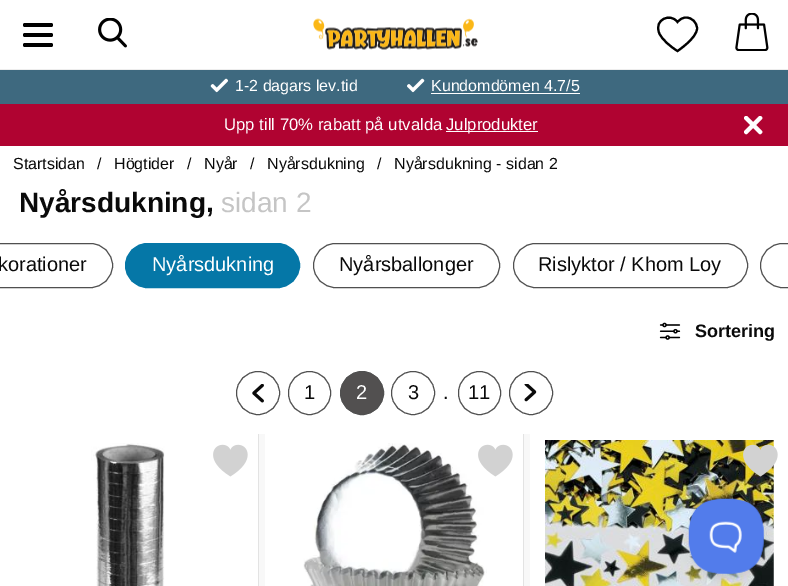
%!PS
<< /PageSize [788 586] /PageUsesTransparency true >> setpagedevice
/rgb { 3 { 255 div 3 1 roll } repeat setrgbcolor } def
/font { [ exch dup neg 0 0 3 -1 roll 0 0 ] selectfont } def
/alpha { dup .setfillconstantalpha .setstrokeconstantalpha } def
/circle { newpath 0 360 arc closepath } def
/roundrect { 5 dict begin { /r /h /w /y /x } { exch def } forall
  x r add y moveto x w add y 2 copy h add r arct x w add y h add x 1 index r arct
  x y h add x y r arct x y 2 copy exch w add exch r arct closepath end } def
/shadow { 12 dict begin { /a /b /q /h /w /y /x } { exch def } forall gsave /was 0 def
  9 -2 -9 { dup b mul 4 div /e exch def 1 sub .425 mul 2.718 exch exp 1 add a .99 .min exch div /now exch def
    1 1 now sub 1 was sub div sub alpha /was now def
    w h .min e 2 mul add 0 gt { x e sub y e sub w e 2 mul add h e 2 mul add
      q e add b .6 mul add w h .min 2 div e add .min 0 .max roundrect fill } if } for grestore end } def
/picture { 5 dict begin { /h /w /y /x /name } { exch def } forall
  gsave x y translate w h scale
  w h 8 [w 0 0 h 0 0] name (r) file false 3 colorimage grestore end } def
0 .pushpdf14devicefilter
0 586 translate 1 -1 scale
4 setmiterlimit
255 255 255 rgb
0 0 788 586 rectfill
237 237 237 rgb
0 69 788 1 rectfill
0 0 0 rgb
23 23 30 4 2 roundrect fill
23 33 30 4 2 roundrect fill
23 43 30 4 2 roundrect fill
(img/1.rgb) 98 18 29 30 picture
(img/2.rgb) 313 18 165 32 picture
2.1 setlinewidth
686 17.5 moveto 692 17.5 697 22.5 697 28.5 curveto 697 38 677.5 51 677.5 51 curveto 671 47 661.5 39.5 659 32.5 curveto 654 19.5 670.5 12.5 677.5 22 curveto 679.5 19.5 682.5 17.5 686 17.5 curveto closepath stroke
(img/3.rgb) 735 13 34 38 picture
62 105 127 rgb
0 70 788 34 rectfill
(img/4.rgb) 210 78 18 15 picture
(img/5.rgb) 407 78 18 15 picture
[
  [431 93 149 1 255 255 255]
  [0 104 788 42 176 3 49]
  [446 131 92 1 255 255 255]
] { aload pop rgb rectfill } forall
(img/6.rgb) 744 116 19 19 picture
80 80 80 rgb
1 setlinewidth
-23.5 243.5 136 44 22 roundrect stroke
5 119 167 rgb
125.5 243.5 174 44 22 roundrect gsave fill grestore
stroke
80 80 80 rgb
313.5 243.5 186 44 22 roundrect stroke
513.5 243.5 234 44 22 roundrect stroke
760.5 243.5 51 44 22 roundrect stroke
(img/7.rgb) 659 322 22 18 picture
258 393 21.5 circle stroke
(img/8.rgb) 252 384 12 19 picture
288.5 371.5 42 43 21 roundrect stroke
82 80 80 rgb
362 393 21.5 circle gsave fill grestore
80 80 80 rgb
stroke
413 393 21.5 circle stroke
458.5 371.5 42 43 21 roundrect stroke
531 393 21.5 circle stroke
(img/9.rgb) 524 384 13 18 picture
248 248 248 rgb
259 434 271 152 rectfill
(img/10.rgb) 91 443 74 143 picture
gsave 258 434 moveto 259 434 lineto 259 586 lineto 258 586 lineto closepath clip newpath
<< /ShadingType 2 /ColorSpace /DeviceRGB /Coords [257 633 259 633] /Extend [true true] /Function << /FunctionType 2 /Domain [0 1] /C0 [1 1 1] /C1 [0.89 0.89 0.89] /N 1 >> >> shfill grestore
(img/11.rgb) 213 444 35 33 picture
255 255 255 rgb
265 434 258 152 rectfill
(img/12.rgb) 303 443 184 143 picture
gsave 523 434 moveto 524 434 lineto 524 586 lineto 523 586 lineto closepath clip newpath
<< /ShadingType 2 /ColorSpace /DeviceRGB /Coords [522 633 524 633] /Extend [true true] /Function << /FunctionType 2 /Domain [0 1] /C0 [1 1 1] /C1 [0.89 0.89 0.89] /N 1 >> >> shfill grestore
(img/11.rgb) 478 444 35 33 picture
(img/13.rgb) 545 440 229 146 picture
(img/14.rgb) 743 444 35 33 picture
0 0 0 rgb
689 504 75 75 37.5 4.5 0.1 shadow
(img/15.rgb) 688 498 76 76 picture
/LiberationSans-Regular 16 font
255 255 255 rgb
235 91 moveto (1-2 dagars lev.tid) show
431 91 moveto (Kundomdömen 4.7/5) show
/LiberationSans-Regular 16.7 font
224 130 moveto (Upp till 70% rabatt på utvalda) show
446 130 moveto (Julprodukter) show
/LiberationSans-Regular 16 font
10 10 10 rgb
[
  [(Startsidan) 13 169]
  [(/) 97 169]
  [(Högtider) 114 169]
  [(/) 187 169]
  [(Nyår) 204 169]
  [(/) 250 169]
  [(Nyårsdukning) 267 169]
  [(/) 377 169]
  [(Nyårsdukning - sidan 2) 394 169]
] { aload pop moveto show } forall
/LiberationSans-Bold 28 font
19 212 moveto (Nyårsdukning,) show
/LiberationSans-Regular 28 font
197 197 197 rgb
221 212 moveto (sidan 2) show
/LiberationSans-Regular 20 font
10 10 10 rgb
-2 271 moveto (korationer) show
255 255 255 rgb
152 271 moveto (Nyårsdukning) show
10 10 10 rgb
339 271 moveto (Nyårsballonger) show
538 271 moveto (Rislyktor / Khom Loy) show
/LiberationSans-Bold 18 font
695 337 moveto (Sortering) show
/LiberationSans-Regular 20 font
304 399 moveto (1) show
255 255 255 rgb
356 399 moveto (2) show
10 10 10 rgb
[
  [(3) 408 399]
  [(.) 443 399]
  [(11) 468 399]
] { aload pop moveto show } forall
.poppdf14devicefilter showpage
